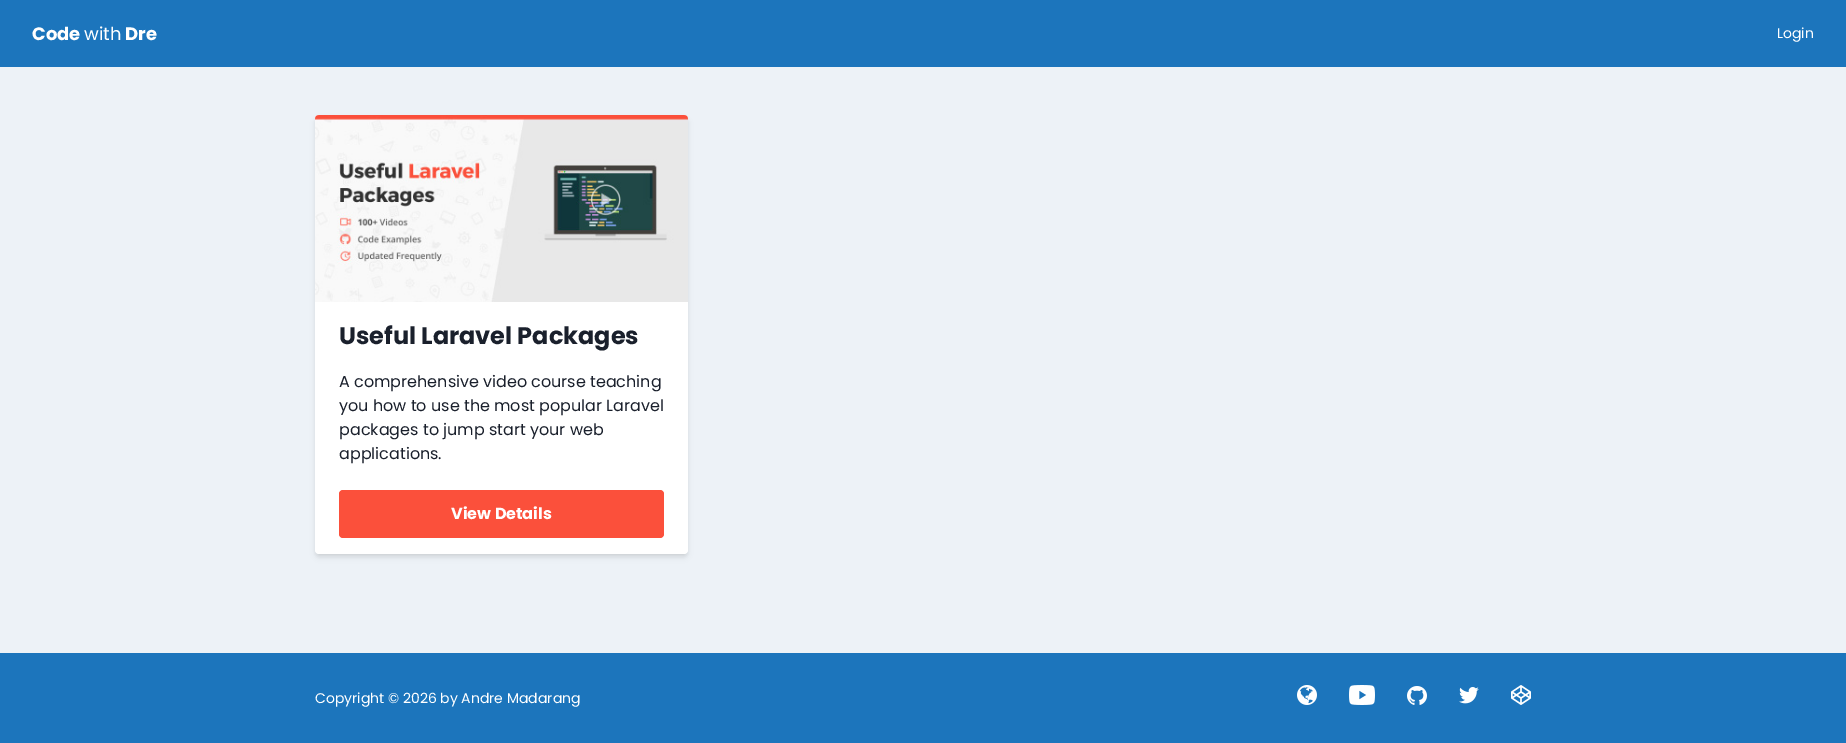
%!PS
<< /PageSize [1846 743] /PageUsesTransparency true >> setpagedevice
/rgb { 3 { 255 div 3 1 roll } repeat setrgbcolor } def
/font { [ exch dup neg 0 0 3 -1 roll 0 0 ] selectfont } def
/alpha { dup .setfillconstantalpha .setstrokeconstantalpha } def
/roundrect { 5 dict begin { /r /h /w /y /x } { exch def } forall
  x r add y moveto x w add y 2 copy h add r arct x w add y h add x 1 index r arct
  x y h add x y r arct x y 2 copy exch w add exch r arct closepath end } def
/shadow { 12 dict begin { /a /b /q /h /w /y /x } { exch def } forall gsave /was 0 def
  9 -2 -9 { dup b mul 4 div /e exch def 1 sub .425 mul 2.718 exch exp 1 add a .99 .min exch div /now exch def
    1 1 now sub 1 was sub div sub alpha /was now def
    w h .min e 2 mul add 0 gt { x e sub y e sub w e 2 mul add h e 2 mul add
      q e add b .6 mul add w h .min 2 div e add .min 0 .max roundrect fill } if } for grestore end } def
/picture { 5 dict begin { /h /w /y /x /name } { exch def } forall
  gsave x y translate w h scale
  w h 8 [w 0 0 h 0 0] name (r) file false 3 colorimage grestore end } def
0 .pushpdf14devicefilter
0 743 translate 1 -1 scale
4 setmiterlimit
237 242 247 rgb
0 0 1846 743 rectfill
28 117 188 rgb
0 0 1846 67 rectfill
0 0 0 rgb
316 118 371 437 3 2 0.06 shadow
316 120 371 437 3 3 0.1 shadow
255 255 255 rgb
315 115 373 439 4 roundrect fill
(img/1.rgb) 315 115 373 187 picture
251 80 59 rgb
339 490 325 48 4 roundrect fill
28 117 188 rgb
0 653 1846 90 rectfill
(img/2.rgb) 1297 685 20 20 picture
(img/3.rgb) 1349 685 26 20 picture
(img/4.rgb) 1407 686 20 19 picture
(img/5.rgb) 1459 687 20 17 picture
(img/6.rgb) 1511 685 20 20 picture
/Poppins-Bold 18 font
255 255 255 rgb
32 40 moveto (Code) show
/Poppins-Regular 18 font
84 40 moveto (with) show
/Poppins-Bold 18 font
125 40 moveto (Dre) show
/Poppins-Regular 14 font
1777 38 moveto (Login) show
/Poppins-Bold 24 font
26 32 44 rgb
339 344 moveto (Useful Laravel Packages) show
/Poppins-Regular 16 font
[
  [(A comprehensive video course teaching) 339 387]
  [(you how to use the most popular Laravel) 339 411]
  [(packages to jump start your web) 339 435]
  [(applications.) 339 459]
] { aload pop moveto show } forall
/Poppins-Bold 16 font
255 255 255 rgb
451 519 moveto (View Details) show
/Poppins-Regular 14 font
315 703 moveto (Copyright © 2026 by Andre Madarang) show
.poppdf14devicefilter showpage
